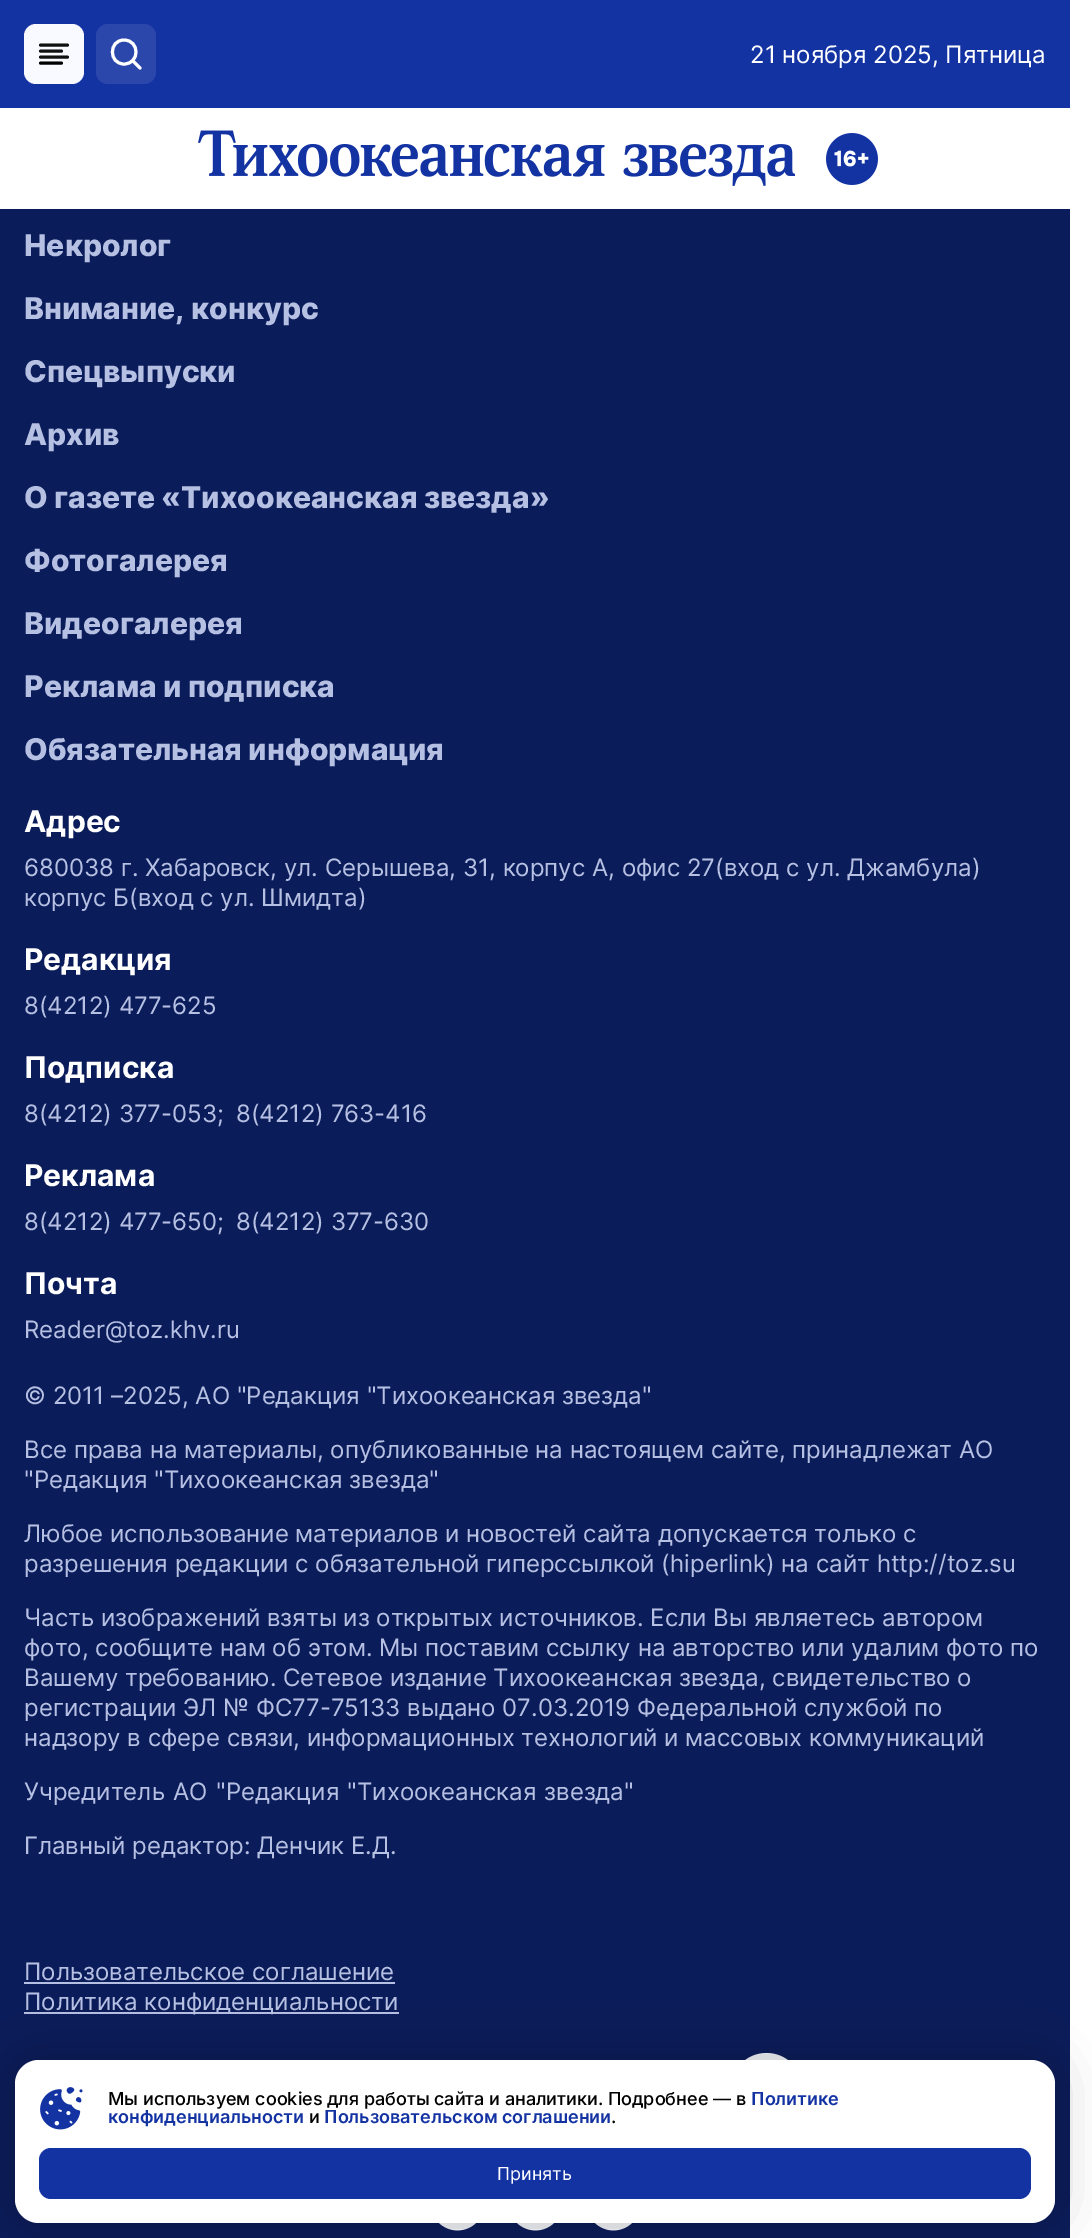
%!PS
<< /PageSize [1092 2238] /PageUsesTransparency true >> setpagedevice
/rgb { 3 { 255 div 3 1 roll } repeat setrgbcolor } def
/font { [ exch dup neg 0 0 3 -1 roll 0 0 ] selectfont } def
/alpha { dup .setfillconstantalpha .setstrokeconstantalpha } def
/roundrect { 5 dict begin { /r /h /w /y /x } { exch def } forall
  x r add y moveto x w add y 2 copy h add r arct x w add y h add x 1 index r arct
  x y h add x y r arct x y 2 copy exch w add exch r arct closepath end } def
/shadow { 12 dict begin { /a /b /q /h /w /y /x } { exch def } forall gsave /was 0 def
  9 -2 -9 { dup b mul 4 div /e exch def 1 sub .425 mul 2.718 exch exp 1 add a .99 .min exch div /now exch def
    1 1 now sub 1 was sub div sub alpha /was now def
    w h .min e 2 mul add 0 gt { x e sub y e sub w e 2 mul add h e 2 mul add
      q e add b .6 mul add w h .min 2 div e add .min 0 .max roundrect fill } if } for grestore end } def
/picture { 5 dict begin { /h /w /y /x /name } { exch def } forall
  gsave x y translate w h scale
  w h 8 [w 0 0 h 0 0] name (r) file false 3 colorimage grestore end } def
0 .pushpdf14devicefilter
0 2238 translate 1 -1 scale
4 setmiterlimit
255 255 255 rgb
0 0 1092 2238 rectfill
20 51 163 rgb
0 0 1070 108 rectfill
249 250 255 rgb
24 24 60 60 12 roundrect fill
16 16 17 rgb
3 setlinewidth
1 setlinecap
1 setlinejoin
61.5 51 moveto 40.5 51 lineto 67.5 45 moveto 40.5 45 lineto 67.5 57 moveto 40.5 57 lineto stroke
0 0 0 rgb
61.5 63 moveto 40.5 63 lineto stroke
44 71 172 rgb
96 24 60 60 12 roundrect fill
255 255 255 rgb
124 64 moveto 140 64 140 40 124 40 curveto 108.5 40 108.5 64 124 64 curveto closepath 133 61 moveto 140 68 lineto stroke
(img/1.rgb) 198 130 597 56 picture
(img/2.rgb) 826 133 52 52 picture
[
  [0 209 1070 2029 11 28 90]
  [24 1982 371 2 182 192 226]
  [24 2012 375 2 182 192 226]
] { aload pop rgb rectfill } forall
(img/3.rgb) 745 2053 43 7 picture
(img/4.rgb) 439 2223 37 8 picture
(img/4.rgb) 517 2223 37 8 picture
(img/4.rgb) 595 2223 37 8 picture
0 0 0 rgb
15 2060 1040 163 24 24 0.25 shadow
255 255 255 rgb
15 2060 1040 163 24 roundrect fill
(img/5.rgb) 40 2087 43 43 picture
20 51 163 rgb
39 2148 992 51 12 roundrect fill
/Inter-Regular 24 font
255 255 255 rgb
750 63 moveto (21 ноября 2025, Пятница) show
/Inter-ExtraBold 30 font
182 192 226 rgb
[
  [(Некролог) 24 256]
  [(Внимание, конкурс) 24 319]
  [(Спецвыпуски) 24 382]
  [(Архив) 24 445]
  [(О газете «Тихоокеанская звезда») 24 508]
  [(Фотогалерея) 24 571]
  [(Видеогалерея) 24 634]
  [(Реклама и подписка) 24 697]
  [(Обязательная информация) 24 760]
] { aload pop moveto show } forall
/Inter-Bold 30 font
255 255 255 rgb
24 832 moveto (Адрес) show
/Inter-Regular 24 font
182 192 226 rgb
24 876 moveto (680038 г. Хабаровск, ул. Серышева, 31, корпус А, офис 27\(вход с ул. Джамбула\)) show
24 906 moveto (корпус Б\(вход с ул. Шмидта\)) show
/Inter-Bold 30 font
255 255 255 rgb
24 970 moveto (Редакция) show
/Inter-Regular 24 font
182 192 226 rgb
24 1014 moveto (8\(4212\) 477-625) show
/Inter-Bold 30 font
255 255 255 rgb
24 1078 moveto (Подписка) show
/Inter-Regular 24 font
182 192 226 rgb
24 1122 moveto (8\(4212\) 377-053;) show
236 1122 moveto (8\(4212\) 763-416) show
/Inter-Bold 30 font
255 255 255 rgb
24 1186 moveto (Реклама) show
/Inter-Regular 24 font
182 192 226 rgb
24 1230 moveto (8\(4212\) 477-650;) show
236 1230 moveto (8\(4212\) 377-630) show
/Inter-Bold 30 font
255 255 255 rgb
24 1294 moveto (Почта) show
/Inter-Regular 24 font
182 192 226 rgb
[
  [(Reader@toz.khv.ru) 24 1338]
  [(© 2011 –2025, АО "Редакция "Тихоокеанская звезда") 24 1404]
  [(Все права на материалы, опубликованные на настоящем сайте, принадлежат АО) 24 1458]
  [("Редакция "Тихоокеанская звезда") 24 1488]
  [(Любое использование материалов и новостей сайта допускается только с) 24 1542]
  [(разрешения редакции с обязательной гиперссылкой \(hiperlink\) на сайт http://toz.su) 24 1572]
  [(Часть изображений взяты из открытых источников. Если Вы являетесь автором) 24 1626]
  [(фото, сообщите нам об этом. Мы поставим ссылку на авторство или удалим фото по) 24 1656]
  [(Вашему требованию. Сетевое издание Тихоокеанская звезда, свидетельство о) 24 1686]
  [(регистрации ЭЛ № ФС77-75133 выдано 07.03.2019 Федеральной службой по) 24 1716]
  [(надзору в сфере связи, информационных технологий и массовых коммуникаций) 24 1746]
] { aload pop moveto show } forall
24 1800 moveto 1.5 0 32 (Учредитель АО "Редакция "Тихоокеанская звезда") widthshow
[
  [(Главный редактор: Денчик Е.Д.) 24 1854]
  [(Пользовательское соглашение) 24 1980]
  [(Политика конфиденциальности) 24 2010]
] { aload pop moveto show } forall
/Inter-Medium 18 font
0 0 0 rgb
108 2105 moveto (Мы используем cookies для работы сайта и аналитики. Подробнее — в) show
/Inter-SemiBold 18 font
20 51 163 rgb
751 2105 moveto (Политике) show
108 2123 moveto (конфиденциальности) show
/Inter-Medium 18 font
0 0 0 rgb
309 2123 moveto (и) show
/Inter-SemiBold 18 font
20 51 163 rgb
324 2123 moveto (Пользовательском соглашении) show
/Inter-Medium 18 font
0 0 0 rgb
611 2123 moveto (.) show
/Inter-Regular 18 font
255 255 255 rgb
497 2180 moveto (Принять) show
.poppdf14devicefilter showpage
